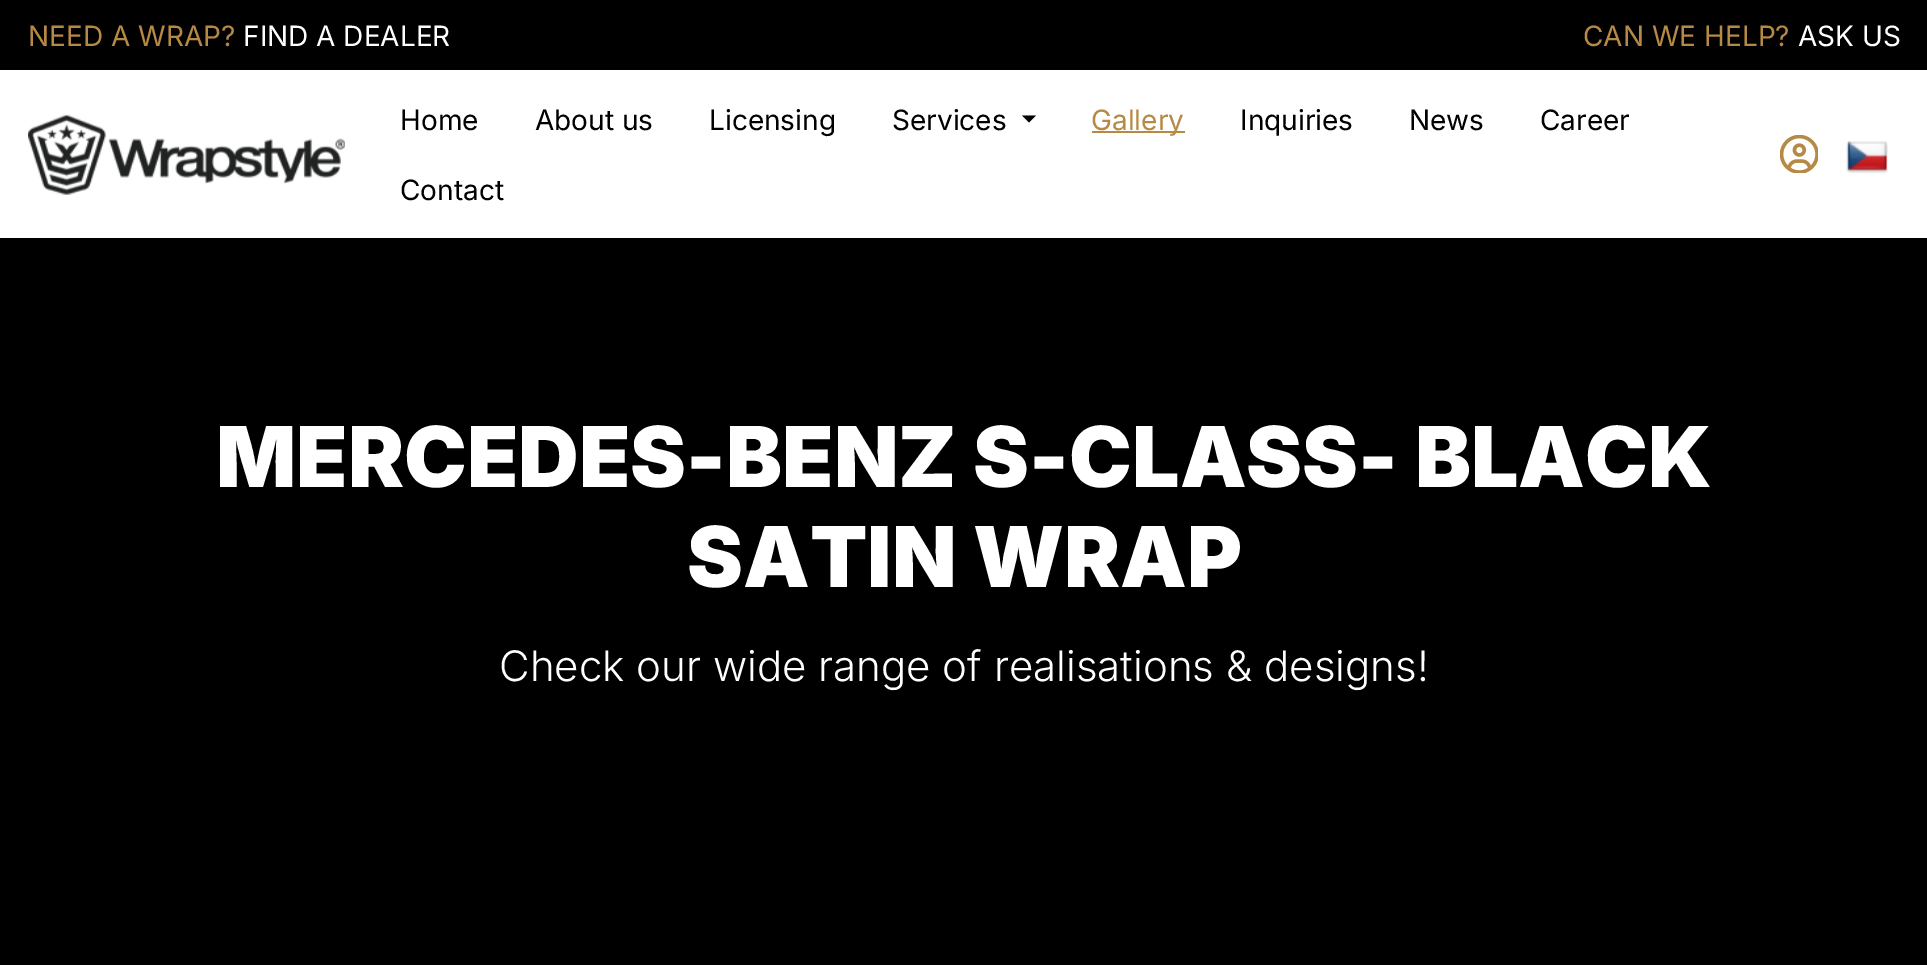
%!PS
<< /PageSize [1927 965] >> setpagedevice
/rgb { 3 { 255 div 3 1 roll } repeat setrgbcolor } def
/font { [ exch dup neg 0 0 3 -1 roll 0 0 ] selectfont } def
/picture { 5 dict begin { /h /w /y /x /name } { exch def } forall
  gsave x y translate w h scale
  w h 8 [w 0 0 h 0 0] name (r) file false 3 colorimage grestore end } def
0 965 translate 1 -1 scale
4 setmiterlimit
255 255 255 rgb
0 0 1927 965 rectfill
0 0 0 rgb
0 0 1927 70 rectfill
(img/1.rgb) 28 114 317 81 picture
1022 115.5 moveto 1036 115.5 lineto 1029 122.5 lineto closepath fill
182 137 68 rgb
1092 131 93 2 rectfill
(img/2.rgb) 1780 135 38 38 picture
(img/3.rgb) 1846 140 42 34 picture
0 0 0 rgb
0 238 1927 727 rectfill
/Inter-Regular 28 font
182 137 68 rgb
28 46 moveto (NEED A WRAP?) show
255 255 255 rgb
243 46 moveto (FIND A DEALER) show
182 137 68 rgb
1583 46 moveto (CAN WE HELP?) show
255 255 255 rgb
1798 46 moveto (ASK US) show
0 0 0 rgb
[
  [(Home) 400 130]
  [(About us) 535 130]
  [(Licensing) 709 130]
  [(Services) 892 130]
] { aload pop moveto show } forall
182 137 68 rgb
1091 130 moveto (Gallery) show
0 0 0 rgb
[
  [(Inquiries) 1240 130]
  [(News) 1409 130]
  [(Career) 1540 130]
  [(Contact) 400 200]
] { aload pop moveto show } forall
/Inter-Black 84 font
255 255 255 rgb
216 487 moveto (MERCEDES-BENZ S-CLASS- BLACK) show
687 587 moveto (SATIN WRAP) show
/Inter-Light 42 font
499 681 moveto (Check our wide range of realisations & designs!) show
showpage
